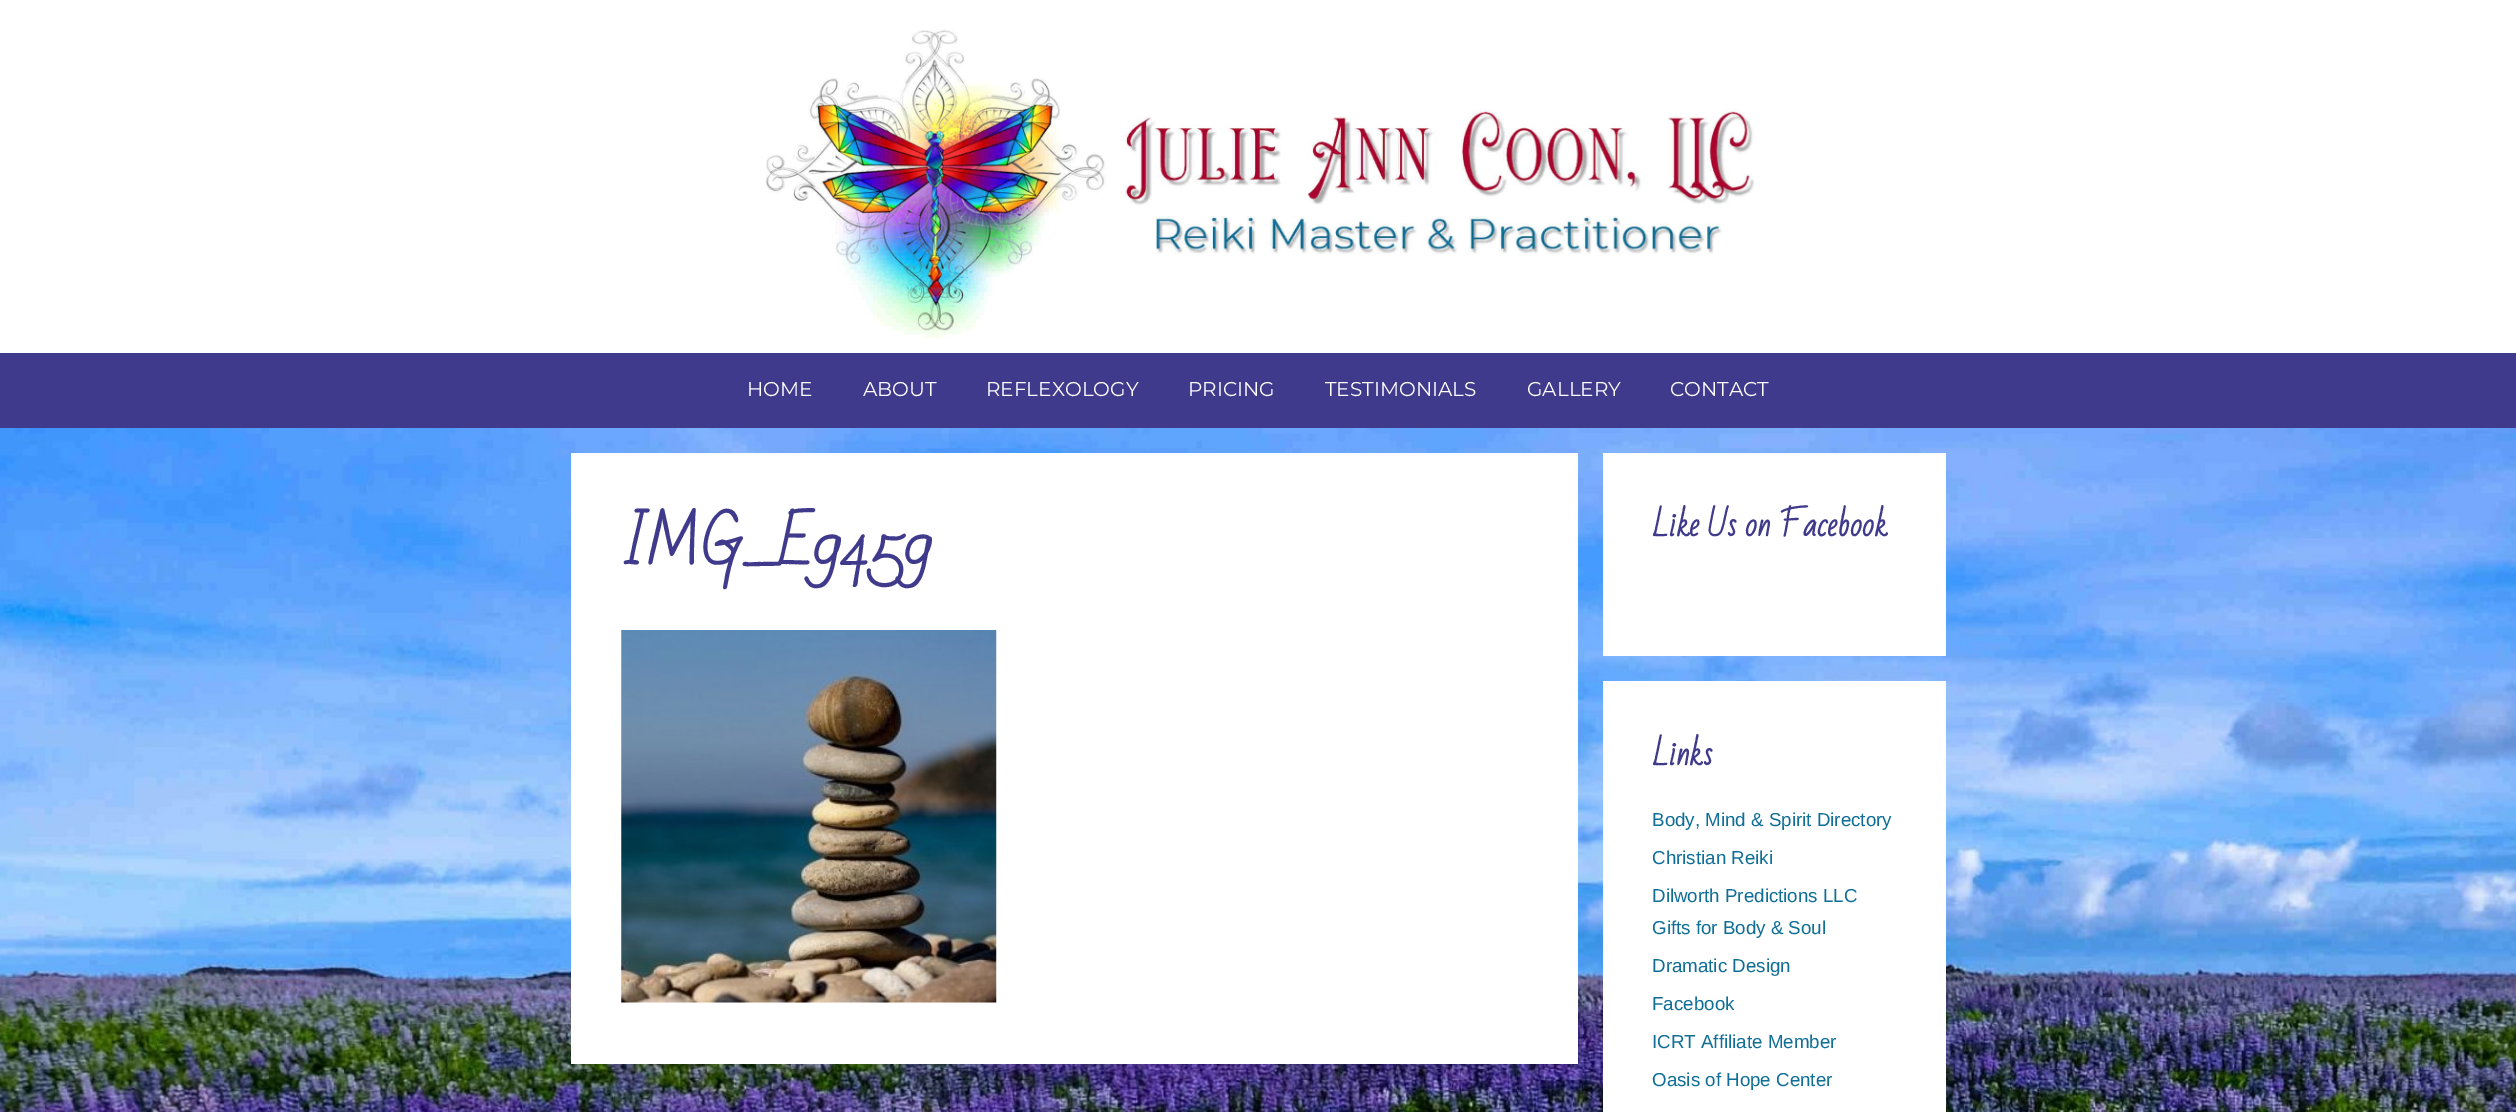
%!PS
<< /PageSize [2516 1112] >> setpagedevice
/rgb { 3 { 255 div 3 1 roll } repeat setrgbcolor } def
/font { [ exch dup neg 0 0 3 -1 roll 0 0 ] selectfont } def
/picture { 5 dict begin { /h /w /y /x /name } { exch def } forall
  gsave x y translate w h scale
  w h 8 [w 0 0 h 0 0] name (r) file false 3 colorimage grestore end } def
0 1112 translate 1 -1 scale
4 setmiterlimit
255 255 255 rgb
0 0 2516 1112 rectfill
(img/1.rgb) 0 428 2516 684 picture
(img/2.rgb) 766 29 989 309 picture
63 58 140 rgb
0 353 2516 75 rectfill
255 255 255 rgb
571 453 1007 611 rectfill
(img/3.rgb) 621 630 376 373 picture
1603 453 343 203 rectfill
1603 681 343 431 rectfill
/Montserrat-Regular 20 font
[
  [(HOME) 747 396]
  [(ABOUT) 863 396]
  [(REFLEXOLOGY) 986 396]
  [(PRICING) 1188 396]
  [(TESTIMONIALS) 1325 396]
  [(GALLERY) 1527 396]
  [(CONTACT) 1670 396]
] { aload pop moveto show } forall
/BadScript-Bold 56.25 font
63 58 140 rgb
621 564 moveto (IMG_E9459) show
/BadScript-Bold 31.25 font
1652 536 moveto (Like Us on Facebook) show
1652 765 moveto (Links) show
/LiberationSans-Regular 18.75 font
16 111 151 rgb
[
  [(Body, Mind & Spirit Directory) 1652 826]
  [(Christian Reiki) 1652 864]
  [(Dilworth Predictions LLC) 1652 902]
  [(Gifts for Body & Soul) 1652 934]
  [(Dramatic Design) 1652 972]
  [(Facebook) 1652 1010]
  [(ICRT Affiliate Member) 1652 1048]
  [(Oasis of Hope Center) 1652 1086]
] { aload pop moveto show } forall
showpage
